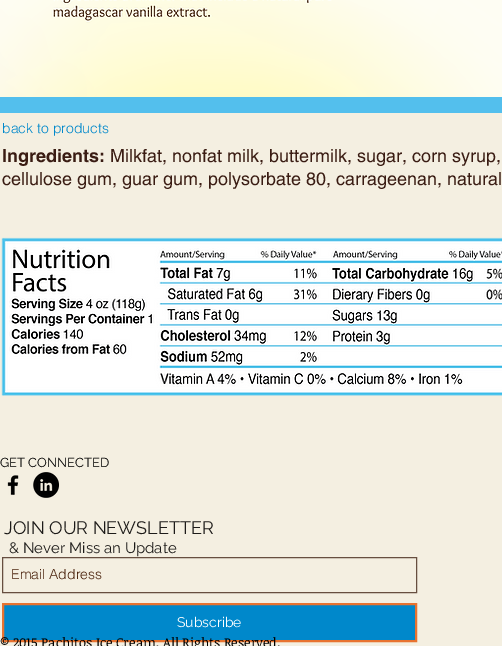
%!PS
<< /PageSize [502 646] >> setpagedevice
/rgb { 3 { 255 div 3 1 roll } repeat setrgbcolor } def
/font { [ exch dup neg 0 0 3 -1 roll 0 0 ] selectfont } def
/picture { 5 dict begin { /h /w /y /x /name } { exch def } forall
  gsave x y translate w h scale
  w h 8 [w 0 0 h 0 0] name (r) file false 3 colorimage grestore end } def
0 646 translate 1 -1 scale
4 setmiterlimit
244 239 225 rgb
0 0 502 646 rectfill
(img/1.rgb) 0 0 502 97 picture
83 191 237 rgb
0 97 502 16 rectfill
(img/2.rgb) 1 237 501 159 picture
(img/3.rgb) 7 475 12 20 picture
(img/4.rgb) 33 472 26 26 picture
103 79 64 rgb
2.5 557.5 414 35 rectstroke
0 136 203 rgb
3 604 moveto 416 604 lineto 416 641 lineto 3 641 lineto closepath gsave fill grestore
232 115 48 rgb
2 setlinewidth
stroke
/helvetica-Light 14 font
0 136 203 rgb
2 133 moveto (back to products) show
/helvetica-Bold 18 font
58 28 19 rgb
2 162 moveto (Ingredients:) show
/helvetica-Regular 18 font
110 162 moveto (Milkfat, nonfat milk, buttermilk, sugar, corn syrup,) show
2 185 moveto (cellulose gum, guar gum, polysorbate 80, carrageenan, natural) show
/Raleway-Regular 13 font
0 0 0 rgb
0 467 moveto (GET CONNECTED) show
/Raleway-Regular 18 font
29 27 25 rgb
4 534 moveto (JOIN OUR NEWSLETTER) show
/Raleway-Regular 15 font
9 553 moveto (& Never Miss an Update) show
/helvetica-Light 14 font
77 38 16 rgb
11 579 moveto (Email Address) show
/Raleway-Regular 14 font
255 255 255 rgb
177 627 moveto (Subscribe) show
/NoticiaText-Regular 13 font
0 0 0 rgb
0 647 moveto (© 2015 Pachitos Ice Cream, All Rights Reserved.) show
showpage
